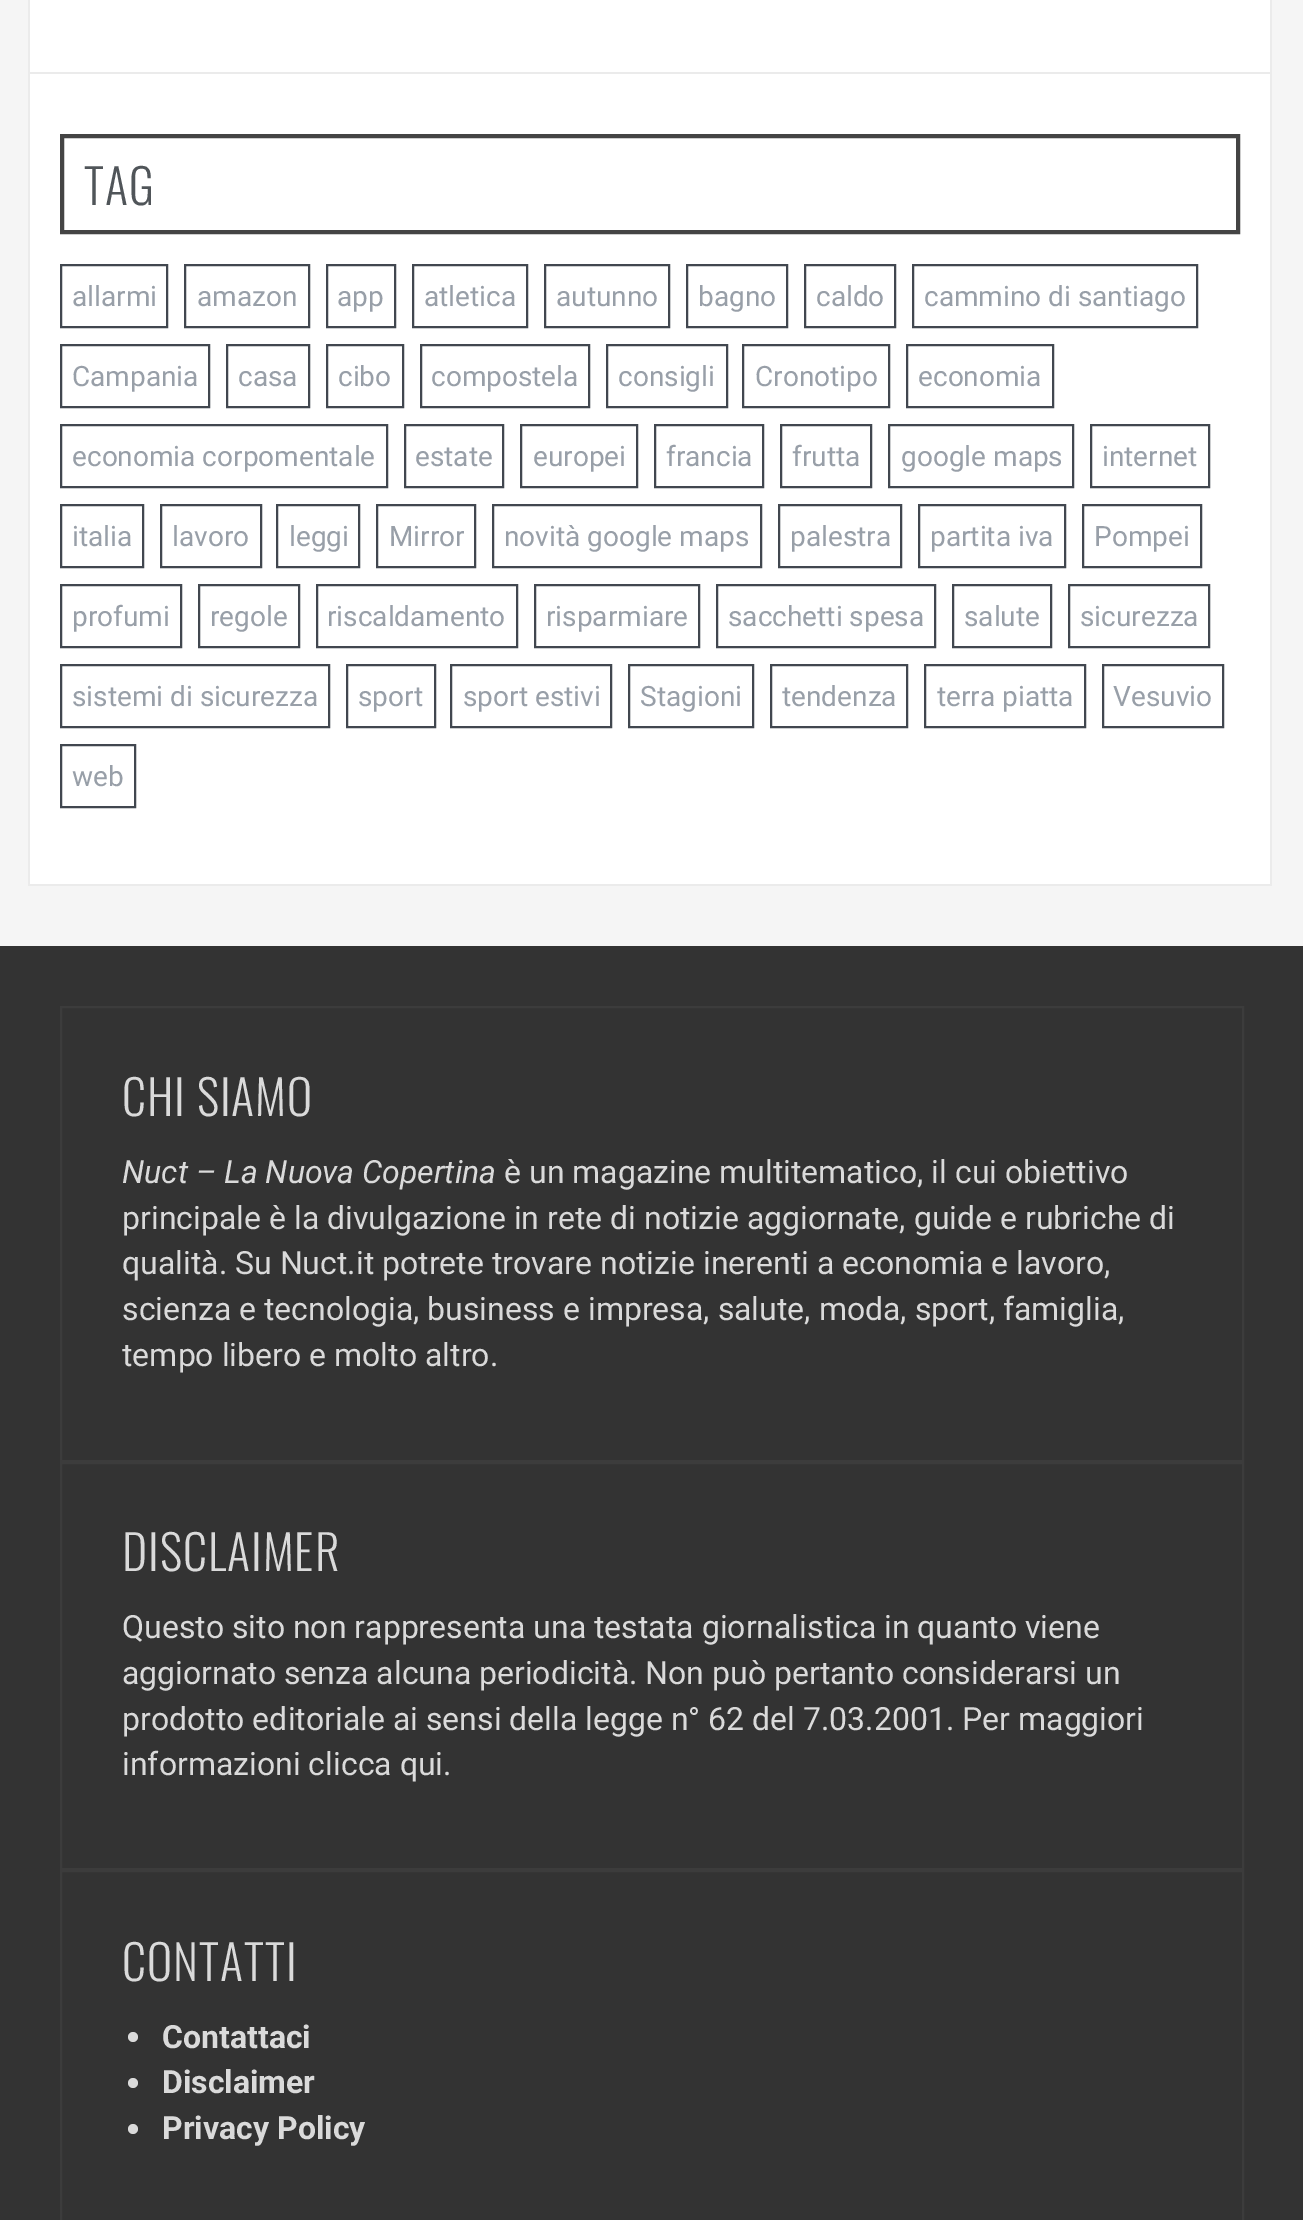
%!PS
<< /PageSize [1303 2220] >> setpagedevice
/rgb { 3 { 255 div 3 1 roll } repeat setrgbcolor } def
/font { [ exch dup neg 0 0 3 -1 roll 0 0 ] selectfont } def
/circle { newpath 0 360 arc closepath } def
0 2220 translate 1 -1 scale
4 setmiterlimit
245 245 245 rgb
0 0 1303 2220 rectfill
[
  [30 0 1240 72 255 255 255]
  [1270 0 2 886 235 235 235]
  [28 72 1244 2 235 235 235]
  [28 0 2 74 235 235 235]
  [30 74 1240 810 255 255 255]
  [28 884 1244 2 235 235 235]
  [28 74 2 812 235 235 235]
] { aload pop rgb rectfill } forall
68 68 68 rgb
4 setlinewidth
62 136 1176 96 rectstroke
65 71 79 rgb
2 setlinewidth
61 265 106 62 rectstroke
185 265 124 62 rectstroke
327 265 68 62 rectstroke
413 265 114 62 rectstroke
545 265 124 62 rectstroke
687 265 100 62 rectstroke
805 265 90 62 rectstroke
913 265 284 62 rectstroke
61 345 148 62 rectstroke
227 345 82 62 rectstroke
327 345 76 62 rectstroke
421 345 168 62 rectstroke
607 345 120 62 rectstroke
743 345 146 62 rectstroke
907 345 146 62 rectstroke
61 425 326 62 rectstroke
405 425 98 62 rectstroke
521 425 116 62 rectstroke
655 425 108 62 rectstroke
781 425 90 62 rectstroke
889 425 184 62 rectstroke
1091 425 118 62 rectstroke
61 505 82 62 rectstroke
161 505 100 62 rectstroke
277 505 82 62 rectstroke
377 505 98 62 rectstroke
493 505 268 62 rectstroke
779 505 122 62 rectstroke
919 505 146 62 rectstroke
1083 505 118 62 rectstroke
61 585 120 62 rectstroke
199 585 100 62 rectstroke
317 585 200 62 rectstroke
535 585 164 62 rectstroke
717 585 218 62 rectstroke
953 585 98 62 rectstroke
1069 585 140 62 rectstroke
61 665 268 62 rectstroke
347 665 88 62 rectstroke
451 665 160 62 rectstroke
629 665 124 62 rectstroke
771 665 136 62 rectstroke
925 665 160 62 rectstroke
1103 665 120 62 rectstroke
61 745 74 62 rectstroke
51 51 51 rgb
0 946 1303 1274 rectfill
60 60 60 rgb
61 1007 1182 454 rectstroke
61 1463 1182 406 rectstroke
61 1871 1182 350 rectstroke
218 218 218 rgb
133 2037 5 circle fill
133 2083 5 circle fill
133 2129 5 circle fill
/Oswald-Light 48 font
80 85 89 rgb
84 205 moveto 1 0 (TAG) ashow
/Roboto-Regular 28 font
152 159 168 rgb
[
  [(allarmi) 72 306]
  [(amazon) 197 306]
  [(app) 337 306]
  [(atletica) 424 306]
  [(autunno) 556 306]
  [(bagno) 698 306]
  [(caldo) 816 306]
  [(cammino di santiago) 924 306]
  [(Campania) 72 386]
  [(casa) 238 386]
  [(cibo) 338 386]
  [(compostela) 431 386]
  [(consigli) 618 386]
  [(Cronotipo) 755 386]
  [(economia) 918 386]
  [(economia corpomentale) 72 466]
  [(estate) 415 466]
  [(europei) 533 466]
  [(francia) 666 466]
  [(frutta) 792 466]
  [(google maps) 901 466]
  [(internet) 1102 466]
  [(italia) 72 546]
  [(lavoro) 172 546]
  [(leggi) 289 546]
  [(Mirror) 389 546]
  [(novità google maps) 504 546]
  [(palestra) 790 546]
  [(partita iva) 930 546]
  [(Pompei) 1094 546]
  [(profumi) 72 626]
  [(regole) 210 626]
  [(riscaldamento) 327 626]
  [(risparmiare) 546 626]
  [(sacchetti spesa) 728 626]
  [(salute) 964 626]
  [(sicurezza) 1080 626]
  [(sistemi di sicurezza) 72 706]
  [(sport) 358 706]
  [(sport estivi) 463 706]
  [(Stagioni) 640 706]
  [(tendenza) 782 706]
  [(terra piatta) 937 706]
  [(Vesuvio) 1113 706]
  [(web) 72 786]
] { aload pop moveto show } forall
/Oswald-Light 48 font
218 218 218 rgb
122 1116 moveto 1 0 (CHI SIAMO) ashow
/Roboto-Italic 32 font
122 1183 moveto (Nuct – La Nuova Copertina) show
/Roboto-Regular 32 font
[
  [(è un magazine multitematico, il cui obiettivo) 504 1183]
  [(principale è la divulgazione in rete di notizie aggiornate, guide e rubriche di) 122 1229]
  [(qualità. Su Nuct.it potrete trovare notizie inerenti a economia e lavoro,) 122 1274]
  [(scienza e tecnologia, business e impresa, salute, moda, sport, famiglia,) 122 1320]
  [(tempo libero e molto altro.) 122 1366]
] { aload pop moveto show } forall
/Oswald-Light 48 font
122 1571 moveto 1 0 (DISCLAIMER) ashow
/Roboto-Regular 32 font
[
  [(Questo sito non rappresenta una testata giornalistica in quanto viene) 122 1638]
  [(aggiornato senza alcuna periodicità. Non può pertanto considerarsi un) 122 1684]
  [(prodotto editoriale ai sensi della legge n° 62 del 7.03.2001. Per maggiori) 122 1730]
  [(informazioni clicca qui.) 122 1775]
] { aload pop moveto show } forall
/Oswald-Light 48 font
122 1981 moveto 1 0 (CONTATTI) ashow
/Roboto-Bold 32 font
[
  [(Contattaci) 162 2048]
  [(Disclaimer) 162 2093]
  [(Privacy Policy) 162 2139]
] { aload pop moveto show } forall
showpage
